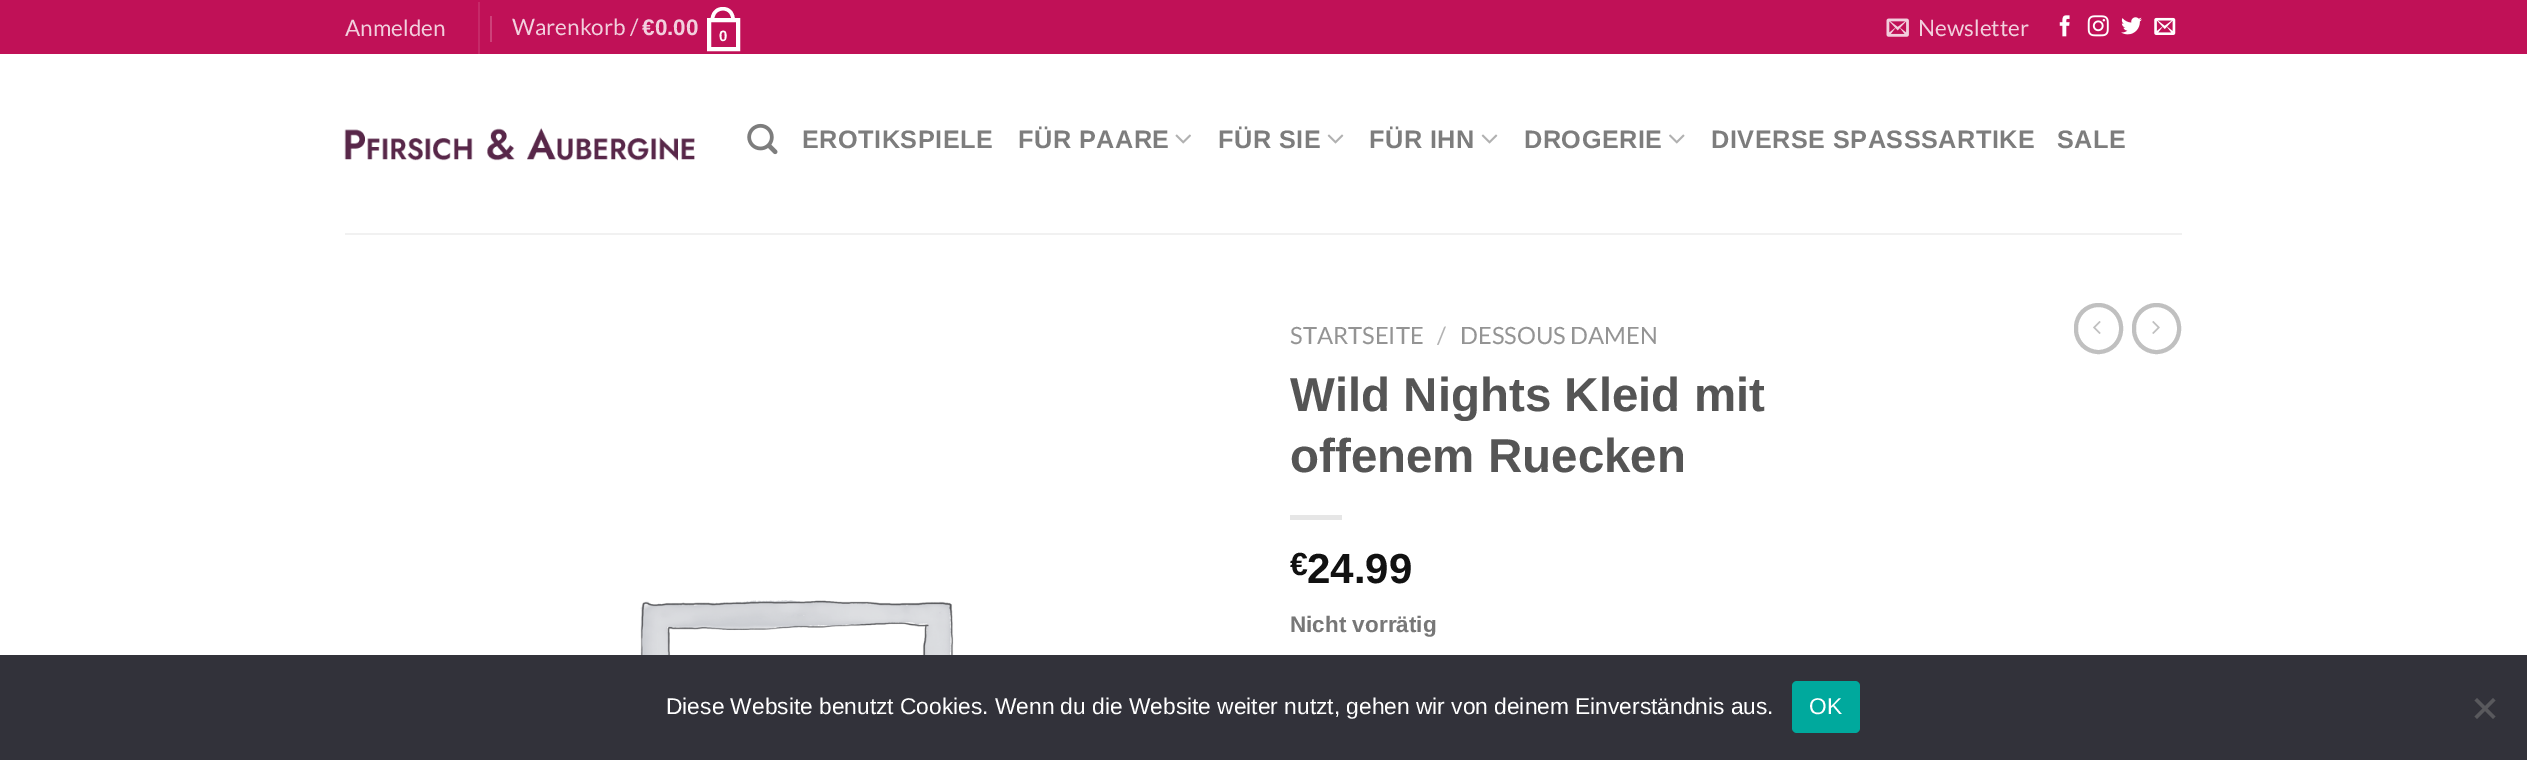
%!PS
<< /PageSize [2527 760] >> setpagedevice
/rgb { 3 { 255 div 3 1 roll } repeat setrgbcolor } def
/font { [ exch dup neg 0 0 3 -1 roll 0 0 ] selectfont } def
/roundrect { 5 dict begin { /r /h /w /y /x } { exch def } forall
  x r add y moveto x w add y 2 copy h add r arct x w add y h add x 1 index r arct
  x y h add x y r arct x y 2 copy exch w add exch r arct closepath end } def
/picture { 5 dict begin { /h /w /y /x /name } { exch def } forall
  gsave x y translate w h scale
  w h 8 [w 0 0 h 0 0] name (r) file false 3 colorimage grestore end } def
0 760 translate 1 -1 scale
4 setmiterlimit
255 255 255 rgb
0 0 2527 760 rectfill
[
  [0 0 2527 54 192 17 87]
  [478 2 2 52 198 41 104]
  [490 16 2 26 205 65 121]
] { aload pop rgb rectfill } forall
255 255 255 rgb
4 setlinewidth
709 20 29 29 rectstroke
723 7 moveto 731 7 735 13.5 735 21 curveto 710.5 21 lineto 710.5 13.5 714.5 7 723 7 curveto closepath 723 10.5 moveto 729 10.5 731.5 15.5 731.5 21 curveto 714 21 lineto 714 15.5 716.5 10.5 723 10.5 curveto closepath eofill
(img/1.rgb) 1886 18 23 19 picture
(img/2.rgb) 2059 15 11 22 picture
(img/3.rgb) 2087 15 22 22 picture
(img/4.rgb) 2121 17 21 18 picture
(img/5.rgb) 2154 17 22 18 picture
(img/6.rgb) 344 127 351 34 picture
(img/7.rgb) 747 123 31 32 picture
(img/8.rgb) 1175 134 16 10 picture
(img/9.rgb) 1327 134 17 10 picture
(img/9.rgb) 1481 134 17 10 picture
(img/10.rgb) 1669 134 16 10 picture
241 241 241 rgb
345 233 1837 2 rectfill
(img/11.rgb) 640 600 314 55 picture
230 230 230 rgb
1290 515 52 5 rectfill
192 192 192 rgb
2076 305 45 47 22.5 roundrect stroke
(img/12.rgb) 2093 321 8 13 picture
2134 305 45 47 22.5 roundrect stroke
(img/13.rgb) 2152 321 8 13 picture
50 50 58 rgb
0 655 2527 105 rectfill
0 169 157 rgb
1792 681 68 52 5 roundrect fill
89 89 93 rgb
2493 698 moveto 2495.5 700.5 lineto 2477 719 lineto 2474.5 716.5 lineto closepath fill
2474.5 700.5 moveto 2477 698 lineto 2495.5 716.5 lineto 2493 719 lineto closepath fill
/Lato-Regular 22.5 font
242 207 221 rgb
345 36 moveto (Anmelden) show
512 35 moveto (Warenkorb /) show
/LiberationSans-Bold 22.5 font
642 35 moveto (€0.00) show
/LiberationSans-Bold 15 font
255 255 255 rgb
719 41 moveto (0) show
/Lato-Regular 22.5 font
242 207 221 rgb
1918 36 moveto (Newsletter) show
/LiberationSans-Bold 25.25 font
125 125 125 rgb
802 148 moveto 0.5 0 (EROTIKSPIELE) ashow
1018 148 moveto 0.5 0 (FÜR PAARE) ashow
1218 148 moveto 0.5 0 (FÜR SIE) ashow
1369 148 moveto 0.5 0 (FÜR IHN) ashow
1524 148 moveto 0.5 0 (DROGERIE) ashow
1711 148 moveto 0.5 0 (DIVERSE SPASSSARTIKE) ashow
2057 148 moveto 0.5 0 (SALE) ashow
/Lato-Regular 23.75 font
148 148 148 rgb
1290 344 moveto (STARTSEITE) show
178 178 178 rgb
1437 344 moveto (/) show
148 148 148 rgb
1460 344 moveto (DESSOUS DAMEN) show
/LiberationSans-Bold 47.5 font
85 85 85 rgb
1290 411 moveto (Wild Nights Kleid mit) show
1290 472 moveto (offenem Ruecken) show
/LiberationSans-Bold 32 font
17 17 17 rgb
1290 575 moveto (€) show
/LiberationSans-Bold 42 font
1307 583 moveto (24.99) show
/LiberationSans-Bold 22.5 font
119 119 119 rgb
1290 632 moveto (Nicht vorrätig) show
/LiberationSans-Regular 22.75 font
255 255 255 rgb
666 714 moveto (Diese Website benutzt Cookies. Wenn du die Website weiter nutzt, gehen wir von deinem Einverständnis aus.) show
1809 714 moveto (OK) show
showpage
